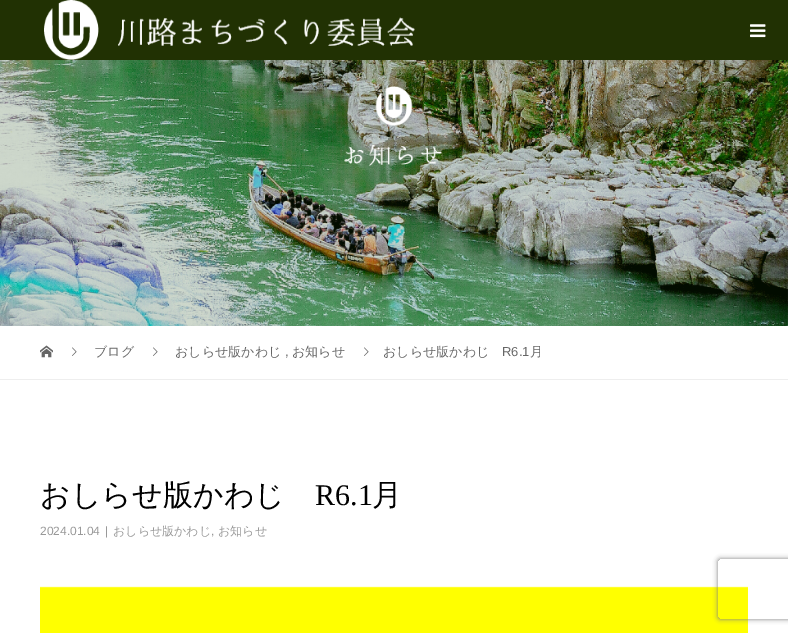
%!PS
<< /PageSize [788 633] /PageUsesTransparency true >> setpagedevice
/rgb { 3 { 255 div 3 1 roll } repeat setrgbcolor } def
/font { [ exch dup neg 0 0 3 -1 roll 0 0 ] selectfont } def
/alpha { dup .setfillconstantalpha .setstrokeconstantalpha } def
/roundrect { 5 dict begin { /r /h /w /y /x } { exch def } forall
  x r add y moveto x w add y 2 copy h add r arct x w add y h add x 1 index r arct
  x y h add x y r arct x y 2 copy exch w add exch r arct closepath end } def
/shadow { 12 dict begin { /a /b /q /h /w /y /x } { exch def } forall gsave /was 0 def
  9 -2 -9 { dup b mul 4 div /e exch def 1 sub .425 mul 2.718 exch exp 1 add a .99 .min exch div /now exch def
    1 1 now sub 1 was sub div sub alpha /was now def
    w h .min e 2 mul add 0 gt { x e sub y e sub w e 2 mul add h e 2 mul add
      q e add b .6 mul add w h .min 2 div e add .min 0 .max roundrect fill } if } for grestore end } def
/picture { 5 dict begin { /h /w /y /x /name } { exch def } forall
  gsave x y translate w h scale
  w h 8 [w 0 0 h 0 0] name (r) file false 3 colorimage grestore end } def
0 .pushpdf14devicefilter
0 633 translate 1 -1 scale
4 setmiterlimit
255 255 255 rgb
0 0 788 633 rectfill
33 49 3 rgb
0 0 788 60 rectfill
(img/1.rgb) 44 0 371 60 picture
(img/2.rgb) 750 24 16 14 picture
(img/3.rgb) 0 60 788 266 picture
238 238 238 rgb
0 379 788 1 rectfill
(img/4.rgb) 40 345 13 13 picture
(img/5.rgb) 72 347 5 9 picture
(img/5.rgb) 153 347 5 9 picture
(img/5.rgb) 364 347 5 9 picture
(img/6.rgb) 40 586 708 47 picture
gsave
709 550 moveto 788 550 lineto 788 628 lineto 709 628 lineto closepath 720 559 moveto 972 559 lineto 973 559 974 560 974 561 curveto 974 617 lineto 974 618 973 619 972 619 curveto 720 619 lineto 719 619 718 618 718 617 curveto 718 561 lineto 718 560 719 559 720 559 curveto closepath eoclip newpath
128 128 128 rgb
718 559 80 60 2 2.5 1 shadow
grestore
/WenQuanYiZenHei-Medium 13 font
102 102 102 rgb
94 356 moveto (ブログ) show
175 356 moveto (おしらせ版かわじ) show
/LiberationSans-Regular 13 font
285 356 moveto (,) show
/WenQuanYiZenHei-Medium 13 font
292 356 moveto (お知らせ) show
383 356 moveto (おしらせ版かわじ) show
/LiberationSans-Regular 13 font
502 356 moveto (R6.1) show
/WenQuanYiZenHei-Medium 13 font
530 356 moveto (月) show
/WenQuanYiZenHei-Medium 30 font
0 0 0 rgb
40 505 moveto (おしらせ版かわじ) show
/LiberationSerif-Regular 30 font
315 505 moveto (R6.1) show
/WenQuanYiZenHei-Medium 30 font
372 505 moveto (月) show
/LiberationSans-Regular 12 font
153 153 153 rgb
40 535 moveto (2024.01.04) show
105 535 moveto (|) show
/WenQuanYiZenHei-Medium 12 font
113 535 moveto (おしらせ版かわじ) show
/LiberationSans-Regular 12 font
211 535 moveto (,) show
/WenQuanYiZenHei-Medium 12 font
218 535 moveto (お知らせ) show
.poppdf14devicefilter showpage
